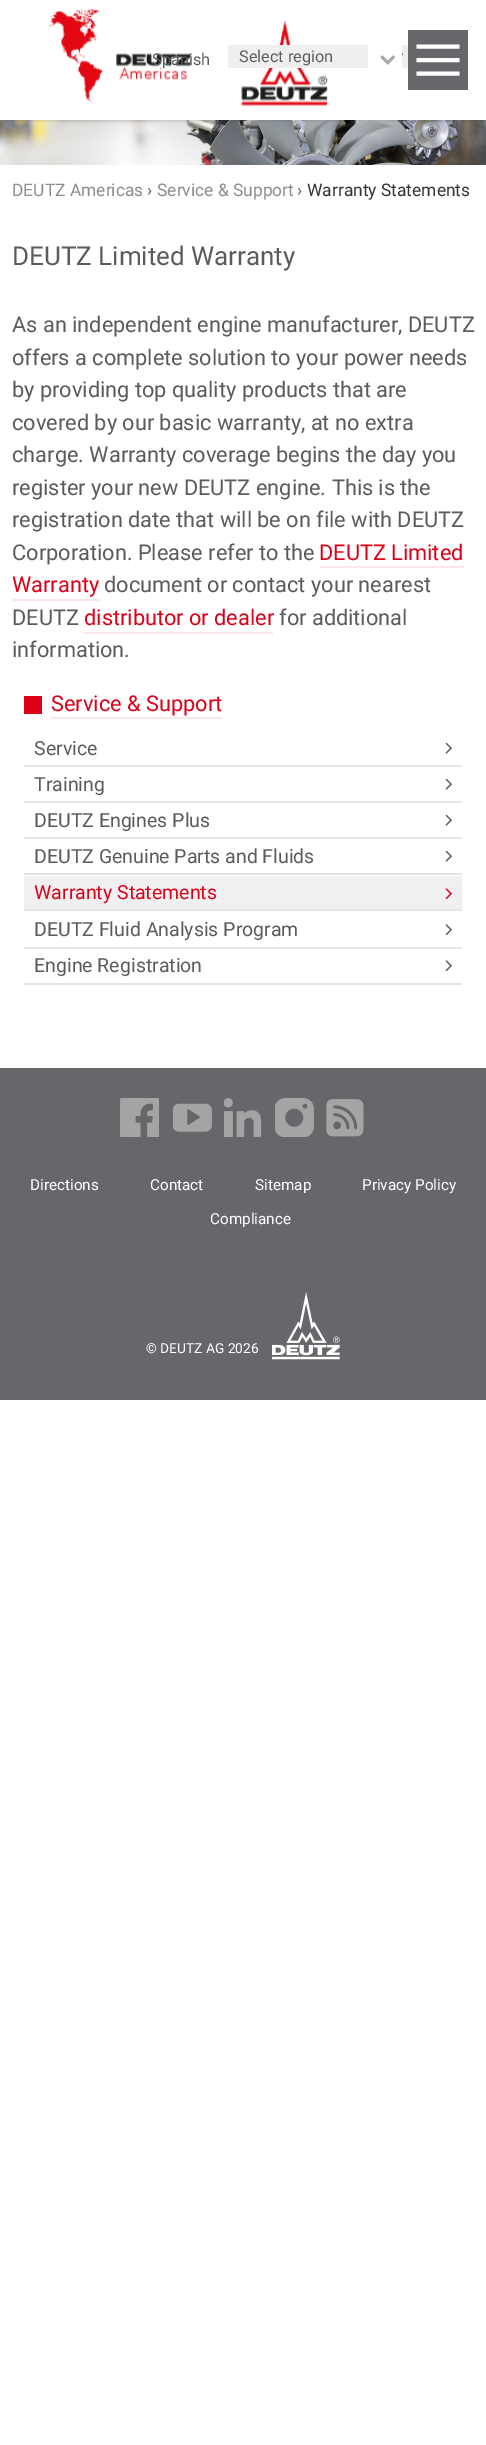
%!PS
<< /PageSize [486 2445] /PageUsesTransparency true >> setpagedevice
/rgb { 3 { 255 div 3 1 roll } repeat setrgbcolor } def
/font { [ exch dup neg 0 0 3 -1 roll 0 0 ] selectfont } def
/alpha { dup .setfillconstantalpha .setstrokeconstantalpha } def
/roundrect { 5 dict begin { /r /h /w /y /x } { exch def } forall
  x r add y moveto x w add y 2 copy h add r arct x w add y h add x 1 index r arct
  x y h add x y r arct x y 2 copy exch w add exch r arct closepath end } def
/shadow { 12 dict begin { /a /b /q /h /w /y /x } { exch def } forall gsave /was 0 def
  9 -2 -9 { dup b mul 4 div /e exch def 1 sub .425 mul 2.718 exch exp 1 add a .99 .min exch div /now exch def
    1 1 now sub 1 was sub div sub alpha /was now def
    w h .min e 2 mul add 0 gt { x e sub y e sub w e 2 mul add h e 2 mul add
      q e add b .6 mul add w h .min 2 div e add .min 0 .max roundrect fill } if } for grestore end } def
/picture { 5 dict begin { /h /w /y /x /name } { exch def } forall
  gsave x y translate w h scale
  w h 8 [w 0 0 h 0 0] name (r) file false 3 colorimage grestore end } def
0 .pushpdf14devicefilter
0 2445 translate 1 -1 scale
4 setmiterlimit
255 255 255 rgb
0 0 486 2445 rectfill
(img/3.rgb) 0 120 486 45 picture
gsave
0 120 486 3 rectclip
2 2 8 rgb
0 0 486 120 0 2 0.2 shadow
grestore
(img/1.rgb) 46 9 282 97 picture
239 239 239 rgb
228 45 180 23 rectfill
91 91 94 rgb
3 setlinewidth
390 53 moveto 396 59 lineto 402 53 lineto stroke
255 255 255 rgb
368 45 34 23 rectfill
(img/2.rgb) 380 55 16 10 picture
103 103 107 rgb
408 30 60 60 rectfill
255 255 255 rgb
4 setlinewidth
416.5 46.5 moveto 459.5 46.5 lineto 416.5 60 moveto 459.5 60 lineto 416.5 73.5 moveto 459.5 73.5 lineto stroke
[
  [320 566 144 2 252 230 232]
  [12 599 87 2 252 230 232]
  [84 632 189 2 252 230 232]
  [24 696 18 18 222 0 23]
  [51 717 171 2 252 230 232]
  [24 765 438 2 230 230 230]
] { aload pop rgb rectfill } forall
(img/4.rgb) 445 742 7 12 picture
24 801 438 2 rectfill
(img/4.rgb) 445 778 7 12 picture
24 837 438 2 rectfill
(img/4.rgb) 445 814 7 12 picture
24 873 438 2 rectfill
(img/4.rgb) 445 850 7 12 picture
240 240 240 rgb
24 876 438 33 rectfill
230 230 230 rgb
24 909 438 2 rectfill
(img/5.rgb) 445 888 7 12 picture
24 947 438 2 rectfill
(img/6.rgb) 445 924 7 12 picture
24 983 438 2 rectfill
(img/6.rgb) 445 960 7 12 picture
103 103 107 rgb
0 1068 486 332 rectfill
(img/7.rgb) 120 1098 39 39 picture
(img/8.rgb) 173 1103 39 29 picture
(img/9.rgb) 224 1098 38 39 picture
(img/10.rgb) 275 1098 39 39 picture
(img/11.rgb) 326 1099 38 38 picture
(img/12.rgb) 272 1292 68 68 picture
/Roboto-Regular 16.25 font
91 91 94 rgb
152 65 moveto (Spanish) show
239 62 moveto (Select region) show
/Roboto-Regular 17.4 font
141 141 144 rgb
12 196 moveto (DEUTZ Americas) show
91 91 94 rgb
147 196 moveto (›) show
141 141 144 rgb
157 196 moveto (Service & Support) show
91 91 94 rgb
297 196 moveto (›) show
53 53 57 rgb
307 196 moveto (Warranty Statements) show
/Roboto-Regular 26 font
91 91 94 rgb
12 265 moveto (DEUTZ Limited Warranty) show
/Roboto-Regular 21.75 font
[
  [(As an independent engine manufacturer, DEUTZ) 12 332]
  [(offers a complete solution to your power needs) 12 365]
  [(by providing top quality products that are) 12 397]
  [(covered by our basic warranty, at no extra) 12 430]
  [(charge. Warranty coverage begins the day you) 12 462]
  [(register your new DEUTZ engine. This is the) 12 495]
  [(registration date that will be on file with DEUTZ) 12 527]
  [(Corporation. Please refer to the) 12 560]
] { aload pop moveto show } forall
222 0 23 rgb
319 560 moveto (DEUTZ Limited) show
12 592 moveto (Warranty) show
91 91 94 rgb
104 592 moveto (document or contact your nearest) show
12 625 moveto (DEUTZ) show
222 0 23 rgb
84 625 moveto (distributor or dealer) show
91 91 94 rgb
279 625 moveto (for additional) show
12 657 moveto (information.) show
222 0 23 rgb
51 711 moveto (Service & Support) show
/Roboto-Regular 19.5 font
91 91 94 rgb
[
  [(Service) 34 755]
  [(Training) 34 791]
  [(DEUTZ Engines Plus) 34 827]
  [(DEUTZ Genuine Parts and Fluids) 34 863]
] { aload pop moveto show } forall
222 0 23 rgb
34 899 moveto (Warranty Statements) show
91 91 94 rgb
34 936 moveto (DEUTZ Fluid Analysis Program) show
34 972 moveto (Engine Registration) show
/Roboto-Regular 15.25 font
255 255 255 rgb
[
  [(Directions) 30 1190]
  [(Contact) 150 1190]
  [(Sitemap) 255 1190]
  [(Privacy Policy) 362 1190]
  [(Compliance) 210 1224]
] { aload pop moveto show } forall
/Roboto-Regular 13.75 font
146 1353 moveto (© DEUTZ AG 2026) show
.poppdf14devicefilter showpage
